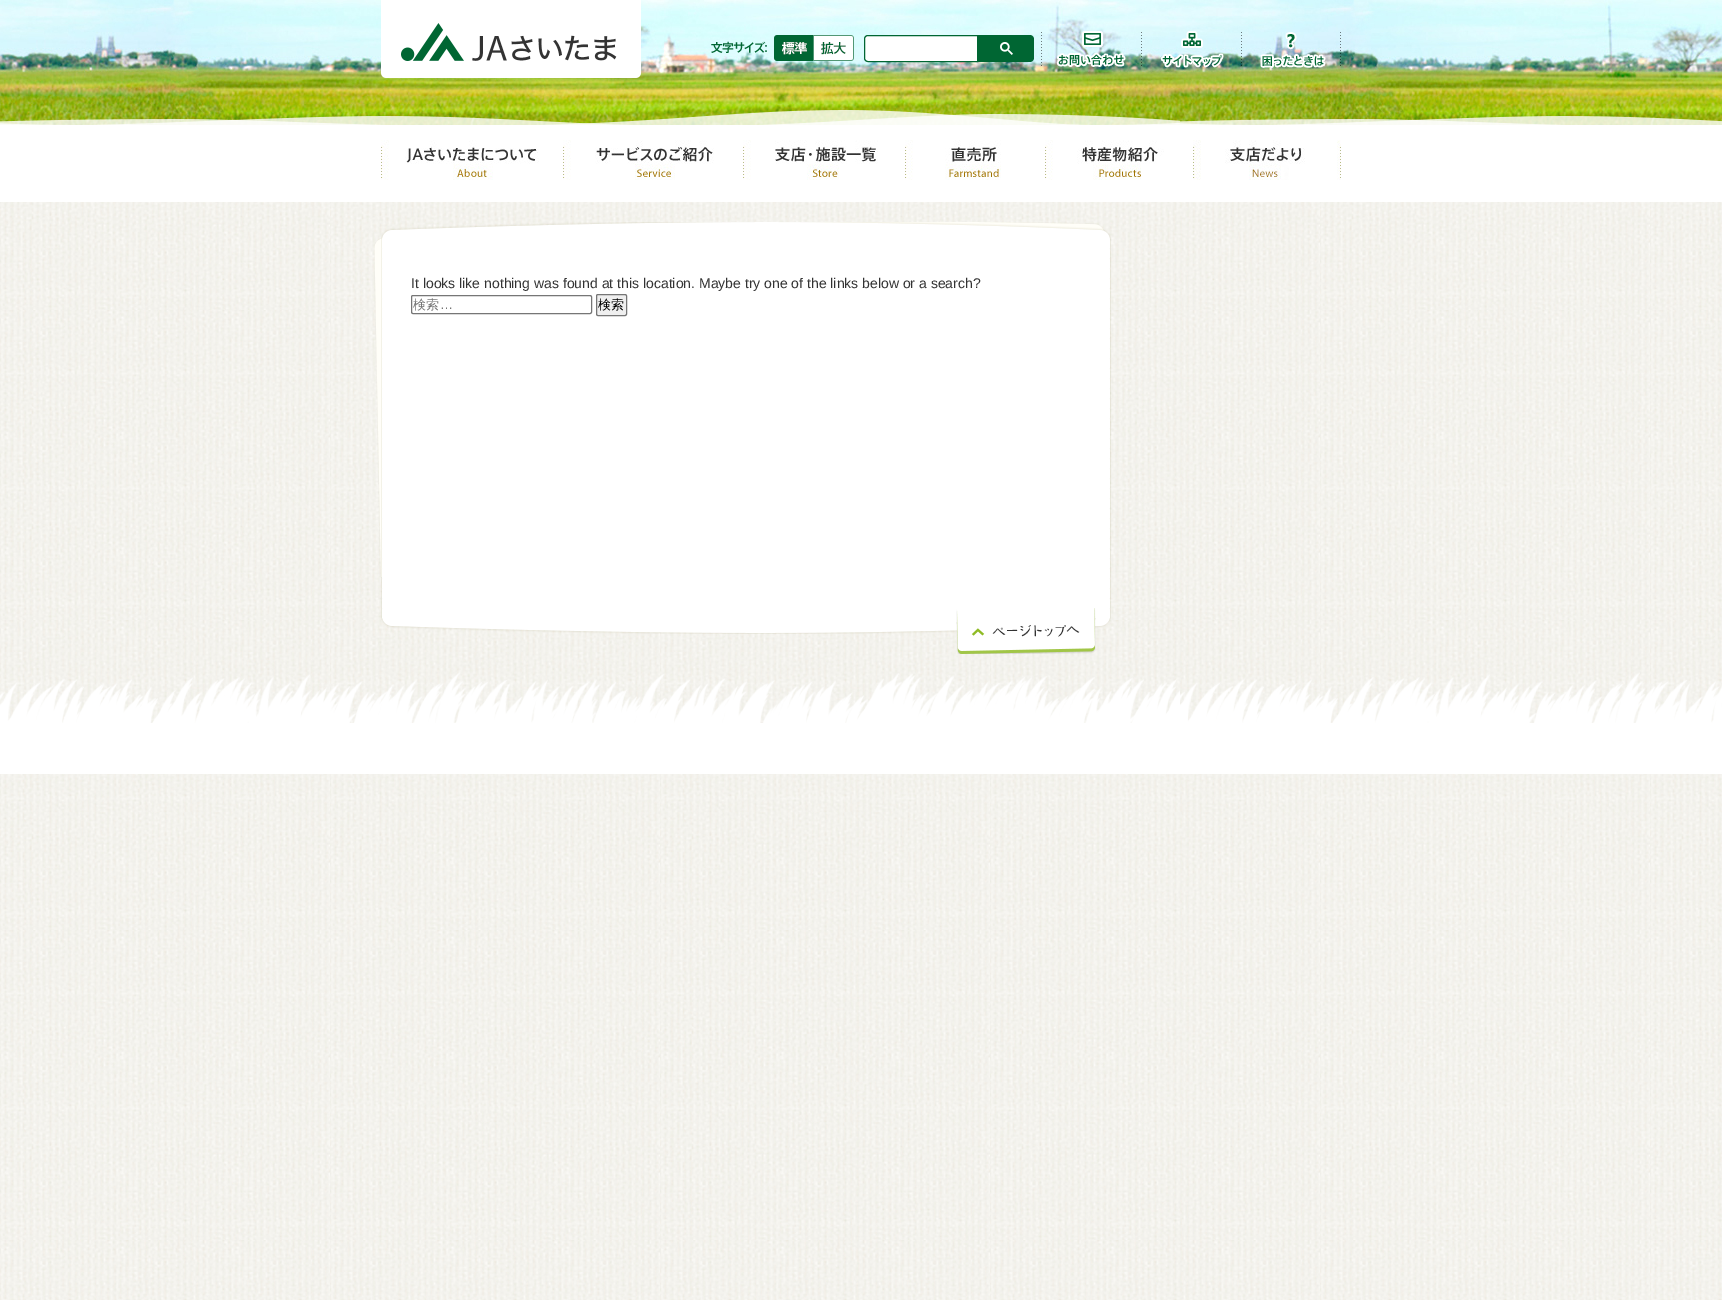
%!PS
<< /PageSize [1722 1300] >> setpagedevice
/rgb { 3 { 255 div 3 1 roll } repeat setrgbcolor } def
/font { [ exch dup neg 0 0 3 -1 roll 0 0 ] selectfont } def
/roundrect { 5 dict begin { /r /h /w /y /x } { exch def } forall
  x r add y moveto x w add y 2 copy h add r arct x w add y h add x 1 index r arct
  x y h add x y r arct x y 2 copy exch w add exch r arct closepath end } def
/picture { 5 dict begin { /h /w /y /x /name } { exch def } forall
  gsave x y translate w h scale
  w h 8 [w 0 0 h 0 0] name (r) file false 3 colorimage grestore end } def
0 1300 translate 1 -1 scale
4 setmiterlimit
255 255 255 rgb
0 0 1722 1300 rectfill
(img/1.rgb) 0 202 1722 1098 picture
(img/2.rgb) 0 0 1722 125 picture
(img/3.rgb) 381 0 260 78 picture
(img/4.rgb) 401 23 216 38 picture
(img/5.rgb) 711 41 56 12 picture
(img/6.rgb) 774 35 40 26 picture
(img/7.rgb) 814 35 40 26 picture
868 35.5 moveto 977.5 35.5 lineto 977.5 61.5 lineto 868 61.5 lineto 866 61.5 864.5 60 864.5 58 curveto 864.5 39 lineto 864.5 37 866 35.5 868 35.5 curveto closepath gsave fill grestore
0 102 51 rgb
stroke
978 35 moveto 1030 35 lineto 1032 35 1034 37 1034 39 curveto 1034 58 lineto 1034 60 1032 62 1030 62 curveto 978 62 lineto closepath fill
(img/8.rgb) 1000 42 13 13 picture
(img/9.rgb) 1041 31 85 36 picture
(img/10.rgb) 1141 31 83 37 picture
(img/11.rgb) 1241 32 100 36 picture
(img/12.rgb) 0 110 1722 92 picture
(img/13.rgb) 381 140 158 40 picture
(img/14.rgb) 563 140 151 40 picture
(img/15.rgb) 743 140 135 40 picture
(img/16.rgb) 905 140 96 40 picture
(img/17.rgb) 945 144 56 36 picture
(img/18.rgb) 1045 140 116 40 picture
(img/19.rgb) 1080 141 84 39 picture
(img/20.rgb) 1193 140 148 40 picture
(img/21.rgb) 1225 141 80 39 picture
(img/22.rgb) 0 672 1722 102 picture
(img/23.rgb) 374 222 731 355 picture
(img/24.rgb) 381 222 730 16 picture
(img/25.rgb) 381 238 730 380 picture
118 118 118 rgb
411.5 295.5 180 18 1.5 roundrect stroke
239 239 239 rgb
596.5 294.5 30 21 1.5 roundrect gsave fill grestore
118 118 118 rgb
stroke
(img/26.rgb) 381 618 730 16 picture
(img/27.rgb) 956 608 140 46 picture
/LiberationSans-Regular 14 font
51 51 51 rgb
411 288 moveto (It looks like nothing was found at this location. Maybe try one of the links below or a search?) show
/WenQuanYiZenHei-Medium 13 font
117 117 117 rgb
413 309 moveto (検索) show
/LiberationSans-Regular 13 font
440 309 moveto (…) show
/WenQuanYiZenHei-Medium 13 font
0 0 0 rgb
598 309 moveto (検索) show
showpage
